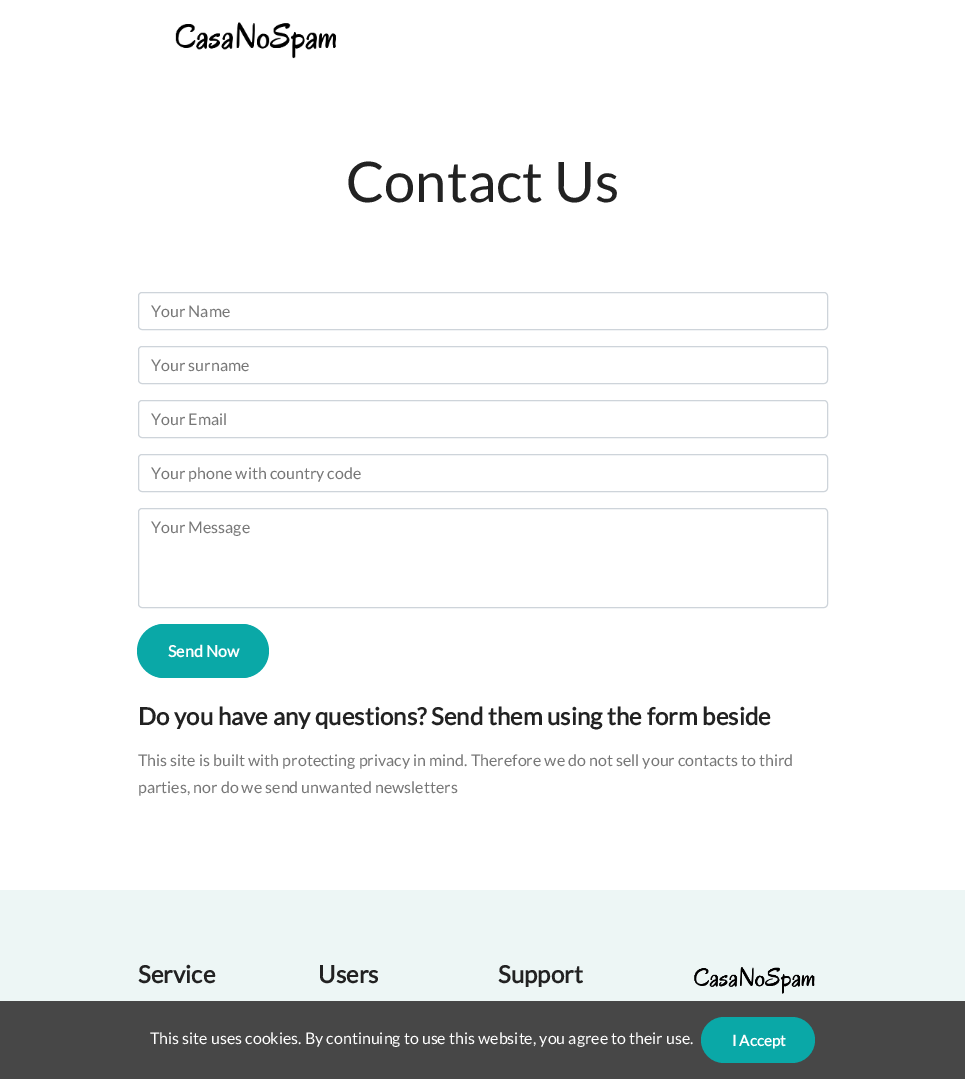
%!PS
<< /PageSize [965 1079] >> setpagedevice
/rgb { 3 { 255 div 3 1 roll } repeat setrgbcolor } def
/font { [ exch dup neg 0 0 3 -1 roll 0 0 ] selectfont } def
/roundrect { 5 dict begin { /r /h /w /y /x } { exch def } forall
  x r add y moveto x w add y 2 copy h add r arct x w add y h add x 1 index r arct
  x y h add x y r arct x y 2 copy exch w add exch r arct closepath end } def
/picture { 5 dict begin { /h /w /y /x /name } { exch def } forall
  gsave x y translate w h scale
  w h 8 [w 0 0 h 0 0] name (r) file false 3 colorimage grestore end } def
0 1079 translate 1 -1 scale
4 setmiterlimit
255 255 255 rgb
0 0 965 1079 rectfill
(img/1.rgb) 175 22 161 37 picture
206 212 218 rgb
138.5 292.5 689 37 3.5 roundrect stroke
138.5 346.5 689 37 3.5 roundrect stroke
138.5 400.5 689 37 3.5 roundrect stroke
138.5 454.5 689 37 3.5 roundrect stroke
138.5 508.5 689 99 3.5 roundrect stroke
10 168 167 rgb
138 624 131 54 27 roundrect fill
137 624 131 54 27 roundrect fill
237 246 245 rgb
0 890 965 111 rectfill
(img/2.rgb) 694 967 121 27 picture
71 71 71 rgb
0 1001 965 78 rectfill
10 168 167 rgb
701 1017 114 46 23 roundrect fill
/Lato-Regular 56 font
34 34 34 rgb
346 202 moveto (Contact Us) show
/Lato-Regular 16 font
119 119 119 rgb
[
  [(Your Name) 151 317]
  [(Your surname) 151 371]
  [(Your Email) 151 425]
  [(Your phone with country code) 151 479]
  [(Your Message) 151 533]
] { aload pop moveto show } forall
/Lato-Bold 16 font
255 255 255 rgb
168 657 moveto (Send Now) show
/Lato-Bold 24 font
34 34 34 rgb
138 725 moveto (Do you have any questions? Send them using the form beside) show
/Lato-Regular 16 font
119 119 119 rgb
138 766 moveto (This site is built with protecting privacy in mind. Therefore we do not sell your contacts to third) show
138 793 moveto (parties, nor do we send unwanted newsletters) show
/Lato-Bold 24 font
34 34 34 rgb
[
  [(Service) 138 983]
  [(Users) 318 983]
  [(Support) 498 983]
] { aload pop moveto show } forall
/Lato-Regular 16 font
255 255 255 rgb
150 1044 moveto (This site uses cookies. By continuing to use this website, you agree to their use.) show
/Lato-Bold 15 font
732 1046 moveto (I Accept) show
showpage
